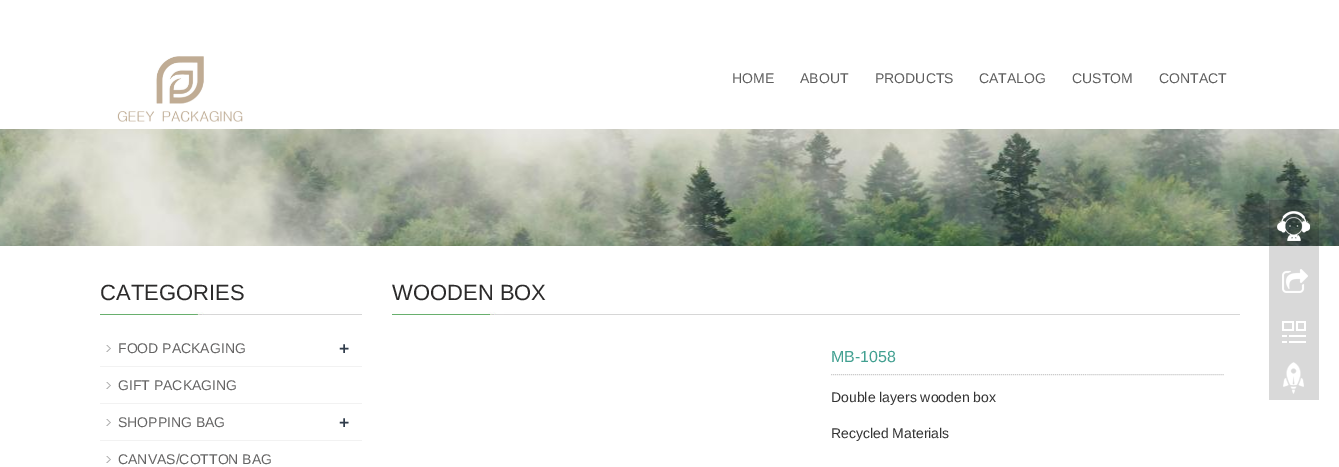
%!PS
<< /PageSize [1339 467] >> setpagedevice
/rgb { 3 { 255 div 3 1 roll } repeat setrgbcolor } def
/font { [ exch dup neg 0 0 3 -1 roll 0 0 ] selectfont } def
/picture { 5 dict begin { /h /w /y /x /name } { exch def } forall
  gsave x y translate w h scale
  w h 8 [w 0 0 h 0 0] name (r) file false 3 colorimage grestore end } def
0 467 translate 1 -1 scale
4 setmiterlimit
255 255 255 rgb
0 0 1339 467 rectfill
(img/1.rgb) 117 56 126 66 picture
(img/2.rgb) 0 129 1339 117 picture
(img/3.rgb) 100 312 262 3 picture
(img/4.rgb) 106 345 5 7 picture
242 242 242 rgb
100 366 262 1 rectfill
(img/4.rgb) 106 382 5 7 picture
100 403 262 1 rectfill
(img/4.rgb) 106 419 5 7 picture
100 440 262 1 rectfill
(img/4.rgb) 106 456 5 7 picture
(img/5.rgb) 392 312 848 3 picture
204 204 204 rgb
[1 1] 0 setdash
831 374.5 moveto 1225 374.5 lineto stroke
(img/6.rgb) 1269 200 50 200 picture
/LiberationSans-Regular 14 font
94 94 94 rgb
[
  [(HOME) 732 83]
  [(ABOUT) 800 83]
  [(PRODUCTS) 875 83]
  [(CATALOG) 979 83]
  [(CUSTOM) 1072 83]
  [(CONTACT) 1159 83]
] { aload pop moveto show } forall
/LiberationSans-Regular 22 font
44 43 43 rgb
100 300 moveto (CATEGORIES) show
/LiberationSans-Regular 14 font
101 100 100 rgb
118 353 moveto (FOOD PACKAGING) show
/OpenSans-SemiBold 18 font
48 60 75 rgb
339 355 moveto (+) show
/LiberationSans-Regular 14 font
101 100 100 rgb
118 390 moveto (GIFT PACKAGING) show
118 427 moveto (SHOPPING BAG) show
/OpenSans-SemiBold 18 font
48 60 75 rgb
339 429 moveto (+) show
/LiberationSans-Regular 14 font
101 100 100 rgb
118 464 moveto (CANVAS/COTTON BAG) show
/LiberationSans-Regular 22 font
44 43 43 rgb
392 300 moveto (WOODEN BOX) show
/LiberationSans-Regular 16 font
66 160 145 rgb
831 362 moveto (MB-1058) show
/LiberationSans-Regular 14 font
51 51 51 rgb
831 402 moveto (Double layers wooden box) show
831 438 moveto (Recycled Materials) show
showpage
